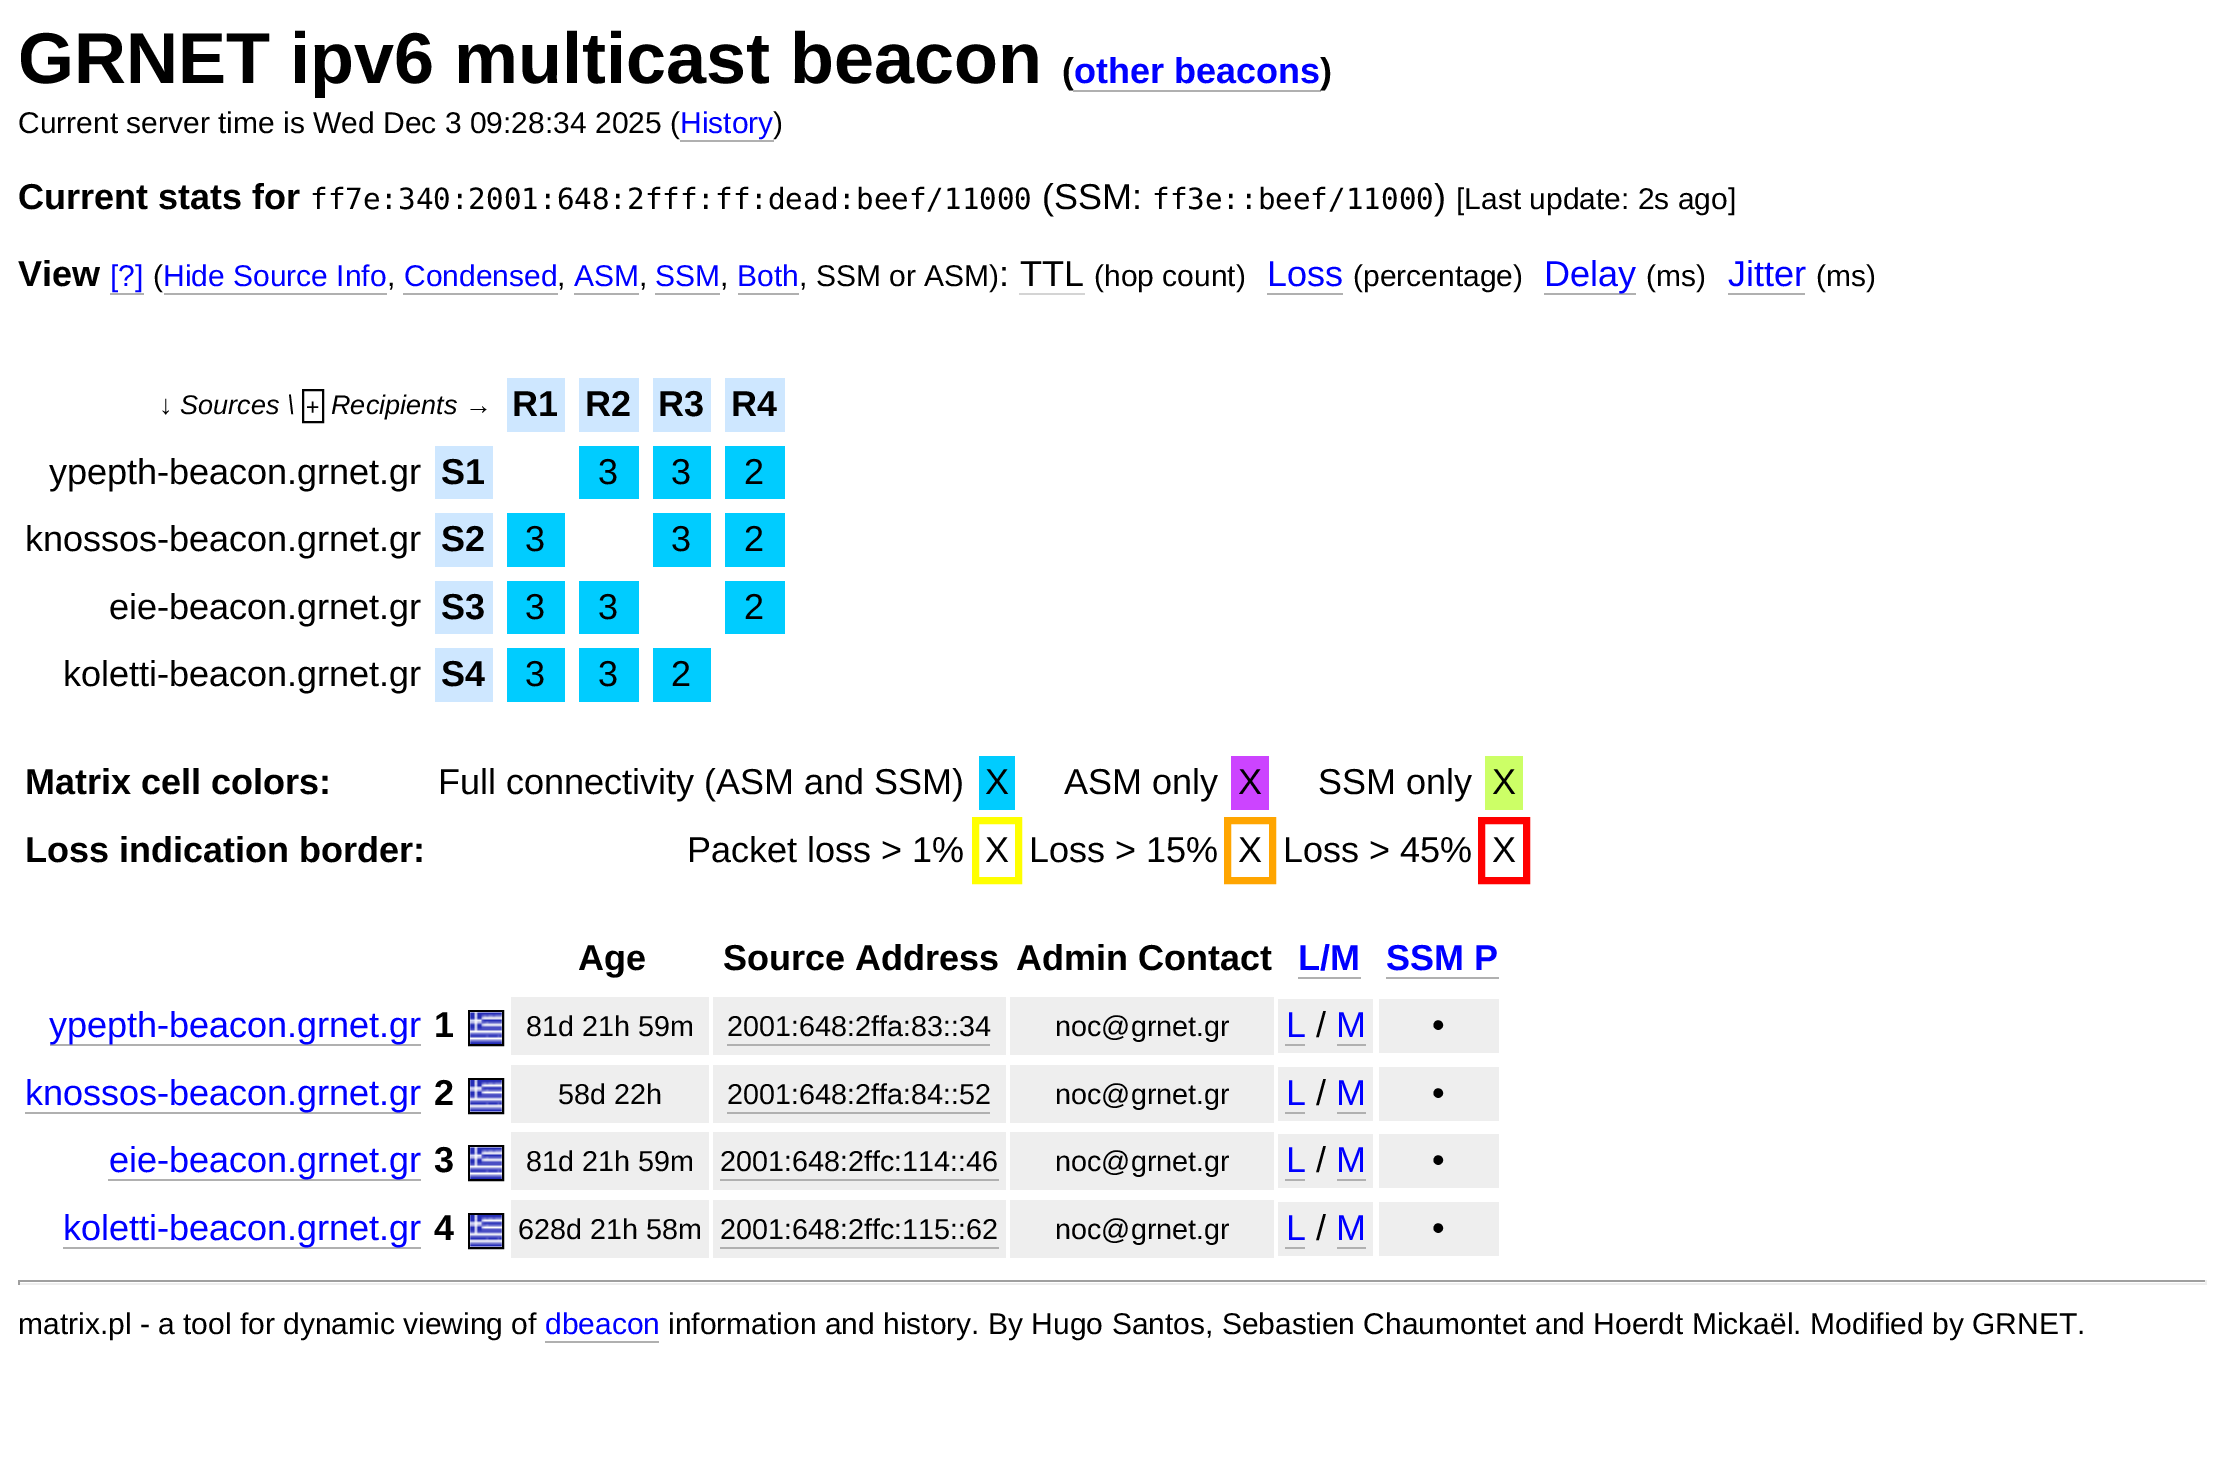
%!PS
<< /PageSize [2225 1461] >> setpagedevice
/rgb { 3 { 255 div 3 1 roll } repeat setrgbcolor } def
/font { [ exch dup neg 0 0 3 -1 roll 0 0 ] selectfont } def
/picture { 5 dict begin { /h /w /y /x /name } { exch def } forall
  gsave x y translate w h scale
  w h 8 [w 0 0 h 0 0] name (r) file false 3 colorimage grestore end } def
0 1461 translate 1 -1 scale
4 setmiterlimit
255 255 255 rgb
0 0 2225 1461 rectfill
[
  [680 140 94 2 176 176 176]
  [110 293 34 2 176 176 176]
  [164 293 223 2 176 176 176]
  [403 293 155 2 176 176 176]
  [574 293 65 2 176 176 176]
  [655 293 65 2 176 176 176]
  [738 293 61 2 176 176 176]
  [1019 293 66 2 212 212 212]
  [1267 293 76 2 176 176 176]
  [1544 293 92 2 176 176 176]
  [1728 293 77 2 176 176 176]
] { aload pop rgb rectfill } forall
0 0 0 rgb
2 setlinewidth
303 390 20 32 rectstroke
[
  [507 378 58 54 206 231 255]
  [579 378 60 54 206 231 255]
  [653 378 58 54 206 231 255]
  [725 378 60 54 206 231 255]
  [435 446 58 53 206 231 255]
  [579 446 60 53 0 204 255]
  [653 446 58 53 0 204 255]
  [725 446 60 53 0 204 255]
  [435 513 58 54 206 231 255]
  [507 513 58 54 0 204 255]
  [653 513 58 54 0 204 255]
  [725 513 60 54 0 204 255]
  [435 581 58 53 206 231 255]
  [507 581 58 53 0 204 255]
  [579 581 60 53 0 204 255]
  [725 581 60 53 0 204 255]
  [435 648 58 54 206 231 255]
  [507 648 58 54 0 204 255]
  [579 648 60 54 0 204 255]
  [653 648 58 54 0 204 255]
  [979 756 36 54 0 204 255]
  [1231 756 38 54 204 68 255]
  [1485 756 38 54 204 255 102]
] { aload pop rgb rectfill } forall
255 255 0 rgb
7 setlinewidth
975.5 820.5 43 60 rectstroke
255 165 0 rgb
1227.5 820.5 45 60 rectstroke
255 0 0 rgb
1481.5 820.5 45 60 rectstroke
[
  [1298 977 63 2 176 176 176]
  [1386 977 113 2 176 176 176]
  [50 1044 371 2 176 176 176]
] { aload pop rgb rectfill } forall
0 0 0 rgb
2 setlinewidth
469 1011 34 34 rectstroke
(img/1.rgb) 470 1012 32 32 picture
[
  [511 997 198 58 238 238 238]
  [713 997 293 58 238 238 238]
  [727 1044 263 2 176 176 176]
  [1010 997 264 58 238 238 238]
  [1278 999 95 54 238 238 238]
  [1285 1044 20 2 176 176 176]
  [1337 1044 29 2 176 176 176]
  [1379 999 120 54 238 238 238]
  [25 1112 396 2 176 176 176]
] { aload pop rgb rectfill } forall
0 0 0 rgb
469 1079 34 34 rectstroke
(img/2.rgb) 470 1080 32 32 picture
[
  [511 1065 198 58 238 238 238]
  [713 1065 293 58 238 238 238]
  [727 1112 263 2 176 176 176]
  [1010 1065 264 58 238 238 238]
  [1278 1067 95 54 238 238 238]
  [1285 1112 20 2 176 176 176]
  [1337 1112 29 2 176 176 176]
  [1379 1067 120 54 238 238 238]
  [108 1179 313 2 176 176 176]
] { aload pop rgb rectfill } forall
0 0 0 rgb
469 1146 34 34 rectstroke
(img/3.rgb) 470 1147 32 32 picture
[
  [511 1132 198 58 238 238 238]
  [713 1132 293 58 238 238 238]
  [720 1179 279 2 176 176 176]
  [1010 1132 264 58 238 238 238]
  [1278 1134 95 54 238 238 238]
  [1285 1179 20 2 176 176 176]
  [1337 1179 29 2 176 176 176]
  [1379 1134 120 54 238 238 238]
  [63 1247 358 2 176 176 176]
] { aload pop rgb rectfill } forall
0 0 0 rgb
469 1214 34 34 rectstroke
(img/2.rgb) 470 1215 32 32 picture
[
  [511 1200 198 58 238 238 238]
  [713 1200 293 58 238 238 238]
  [720 1247 279 2 176 176 176]
  [1010 1200 264 58 238 238 238]
  [1278 1202 95 54 238 238 238]
  [1285 1247 20 2 176 176 176]
  [1337 1247 29 2 176 176 176]
  [1379 1202 120 54 238 238 238]
  [18 1280 2189 2 159 159 159]
  [2205 1280 2 5 238 238 238]
  [18 1283 2189 2 238 238 238]
  [18 1280 2 5 159 159 159]
  [545 1341 114 2 176 176 176]
] { aload pop rgb rectfill } forall
/LiberationSans-Bold 72 font
0 0 0 rgb
18 83 moveto (GRNET ipv6 multicast beacon) show
/LiberationSans-Bold 36 font
1062 83 moveto (\() show
176 176 176 rgb
1073 90 248 2 rectfill
0 0 255 rgb
1074 83 moveto (other beacons) show
0 0 0 rgb
1320 83 moveto (\)) show
/LiberationSans-Regular 30 font
18 133 moveto (Current server time is Wed Dec 3 09:28:34 2025 \() show
0 0 255 rgb
680 133 moveto (History) show
0 0 0 rgb
773 133 moveto (\)) show
/LiberationSans-Bold 36 font
18 209 moveto (Current stats for) show
/DejaVuSansMono-Regular 29.25 font
310 209 moveto (ff7e:340:2001:648:2fff:ff:dead:beef/11000) show
/LiberationSans-Regular 36 font
1042 209 moveto (\(SSM:) show
/DejaVuSansMono-Regular 29.25 font
1152 209 moveto (ff3e::beef/11000) show
/LiberationSans-Regular 36 font
1434 209 moveto (\)) show
/LiberationSans-Regular 30 font
1456 209 moveto ([Last update: 2s ago]) show
/LiberationSans-Bold 36 font
18 286 moveto (View) show
/LiberationSans-Regular 30 font
0 0 255 rgb
110 286 moveto ([?]) show
0 0 0 rgb
153 286 moveto (\() show
0 0 255 rgb
163 286 moveto (Hide Source Info) show
0 0 0 rgb
387 286 moveto (,) show
0 0 255 rgb
404 286 moveto (Condensed) show
0 0 0 rgb
557 286 moveto (,) show
0 0 255 rgb
574 286 moveto (ASM) show
0 0 0 rgb
639 286 moveto (,) show
0 0 255 rgb
655 286 moveto (SSM) show
0 0 0 rgb
720 286 moveto (,) show
0 0 255 rgb
737 286 moveto (Both) show
0 0 0 rgb
799 286 moveto (, SSM or ASM\)) show
/LiberationSans-Regular 36 font
999 286 moveto (:) show
1020 286 moveto (TTL) show
/LiberationSans-Regular 30 font
1094 286 moveto (\(hop count\)) show
/LiberationSans-Regular 36 font
0 0 255 rgb
1267 286 moveto (Loss) show
/LiberationSans-Regular 30 font
0 0 0 rgb
1353 286 moveto (\(percentage\)) show
/LiberationSans-Regular 36 font
0 0 255 rgb
1544 286 moveto (Delay) show
/LiberationSans-Regular 30 font
0 0 0 rgb
1646 286 moveto (\(ms\)) show
/LiberationSans-Regular 36 font
0 0 255 rgb
1728 286 moveto (Jitter) show
/LiberationSans-Regular 30 font
0 0 0 rgb
1816 286 moveto (\(ms\)) show
/LiberationSans-Italic 27 font
159 414 moveto (↓ Sources \\) show
/DejaVuSansMono-Regular 22 font
306 414 moveto (+) show
/LiberationSans-Italic 27 font
331 414 moveto (Recipients →) show
/LiberationSans-Bold 36 font
[
  [(R1) 512 416]
  [(R2) 585 416]
  [(R3) 658 416]
  [(R4) 731 416]
] { aload pop moveto show } forall
/LiberationSans-Regular 36 font
49 484 moveto (ypepth-beacon.grnet.gr) show
/LiberationSans-Bold 36 font
441 484 moveto (S1) show
/LiberationSans-Regular 36 font
[
  [(3) 598 484]
  [(3) 671 484]
  [(2) 744 484]
  [(knossos-beacon.grnet.gr) 25 551]
] { aload pop moveto show } forall
/LiberationSans-Bold 36 font
441 551 moveto (S2) show
/LiberationSans-Regular 36 font
[
  [(3) 525 551]
  [(3) 671 551]
  [(2) 744 551]
  [(eie-beacon.grnet.gr) 109 619]
] { aload pop moveto show } forall
/LiberationSans-Bold 36 font
441 619 moveto (S3) show
/LiberationSans-Regular 36 font
[
  [(3) 525 619]
  [(3) 598 619]
  [(2) 744 619]
  [(koletti-beacon.grnet.gr) 63 686]
] { aload pop moveto show } forall
/LiberationSans-Bold 36 font
441 686 moveto (S4) show
/LiberationSans-Regular 36 font
[
  [(3) 525 686]
  [(3) 598 686]
  [(2) 671 686]
] { aload pop moveto show } forall
/LiberationSans-Bold 36 font
25 794 moveto (Matrix cell colors:) show
/LiberationSans-Regular 36 font
[
  [(Full connectivity \(ASM and SSM\)) 438 794]
  [(X) 985 794]
  [(ASM only) 1064 794]
  [(X) 1238 794]
  [(SSM only) 1318 794]
  [(X) 1492 794]
] { aload pop moveto show } forall
/LiberationSans-Bold 36 font
25 862 moveto (Loss indication border:) show
/LiberationSans-Regular 36 font
[
  [(Packet loss > 1%) 687 862]
  [(X) 985 862]
  [(Loss > 15%) 1029 862]
  [(X) 1238 862]
  [(Loss > 45%) 1283 862]
  [(X) 1492 862]
] { aload pop moveto show } forall
/LiberationSans-Bold 36 font
[
  [(Age) 578 970]
  [(Source Address) 723 970]
  [(Admin Contact) 1016 970]
] { aload pop moveto show } forall
0 0 255 rgb
1298 970 moveto (L/M) show
1386 970 moveto (SSM P) show
/LiberationSans-Regular 36 font
49 1037 moveto (ypepth-beacon.grnet.gr) show
/LiberationSans-Bold 36 font
0 0 0 rgb
434 1037 moveto (1) show
/LiberationSans-Regular 28.75 font
[
  [(81d 21h 59m) 526 1036]
  [(2001:648:2ffa:83::34) 727 1036]
  [(noc@grnet.gr) 1055 1036]
] { aload pop moveto show } forall
/LiberationSans-Regular 36 font
0 0 255 rgb
1286 1037 moveto (L) show
0 0 0 rgb
1316 1037 moveto (/) show
0 0 255 rgb
1336 1037 moveto (M) show
0 0 0 rgb
1432 1037 moveto (•) show
0 0 255 rgb
25 1105 moveto (knossos-beacon.grnet.gr) show
/LiberationSans-Bold 36 font
0 0 0 rgb
434 1105 moveto (2) show
/LiberationSans-Regular 28.75 font
[
  [(58d 22h) 558 1104]
  [(2001:648:2ffa:84::52) 727 1104]
  [(noc@grnet.gr) 1055 1104]
] { aload pop moveto show } forall
/LiberationSans-Regular 36 font
0 0 255 rgb
1286 1105 moveto (L) show
0 0 0 rgb
1316 1105 moveto (/) show
0 0 255 rgb
1336 1105 moveto (M) show
0 0 0 rgb
1432 1105 moveto (•) show
0 0 255 rgb
109 1172 moveto (eie-beacon.grnet.gr) show
/LiberationSans-Bold 36 font
0 0 0 rgb
434 1172 moveto (3) show
/LiberationSans-Regular 28.75 font
[
  [(81d 21h 59m) 526 1171]
  [(2001:648:2ffc:114::46) 720 1171]
  [(noc@grnet.gr) 1055 1171]
] { aload pop moveto show } forall
/LiberationSans-Regular 36 font
0 0 255 rgb
1286 1172 moveto (L) show
0 0 0 rgb
1316 1172 moveto (/) show
0 0 255 rgb
1336 1172 moveto (M) show
0 0 0 rgb
1432 1172 moveto (•) show
0 0 255 rgb
63 1240 moveto (koletti-beacon.grnet.gr) show
/LiberationSans-Bold 36 font
0 0 0 rgb
434 1240 moveto (4) show
/LiberationSans-Regular 28.75 font
[
  [(628d 21h 58m) 518 1239]
  [(2001:648:2ffc:115::62) 720 1239]
  [(noc@grnet.gr) 1055 1239]
] { aload pop moveto show } forall
/LiberationSans-Regular 36 font
0 0 255 rgb
1286 1240 moveto (L) show
0 0 0 rgb
1316 1240 moveto (/) show
0 0 255 rgb
1336 1240 moveto (M) show
0 0 0 rgb
1432 1240 moveto (•) show
/LiberationSans-Regular 30 font
18 1334 moveto (matrix.pl - a tool for dynamic viewing of) show
0 0 255 rgb
545 1334 moveto (dbeacon) show
0 0 0 rgb
668 1334 moveto (information and history. By Hugo Santos, Sebastien Chaumontet and Hoerdt Mickaël. Modified by GRNET.) show
showpage
